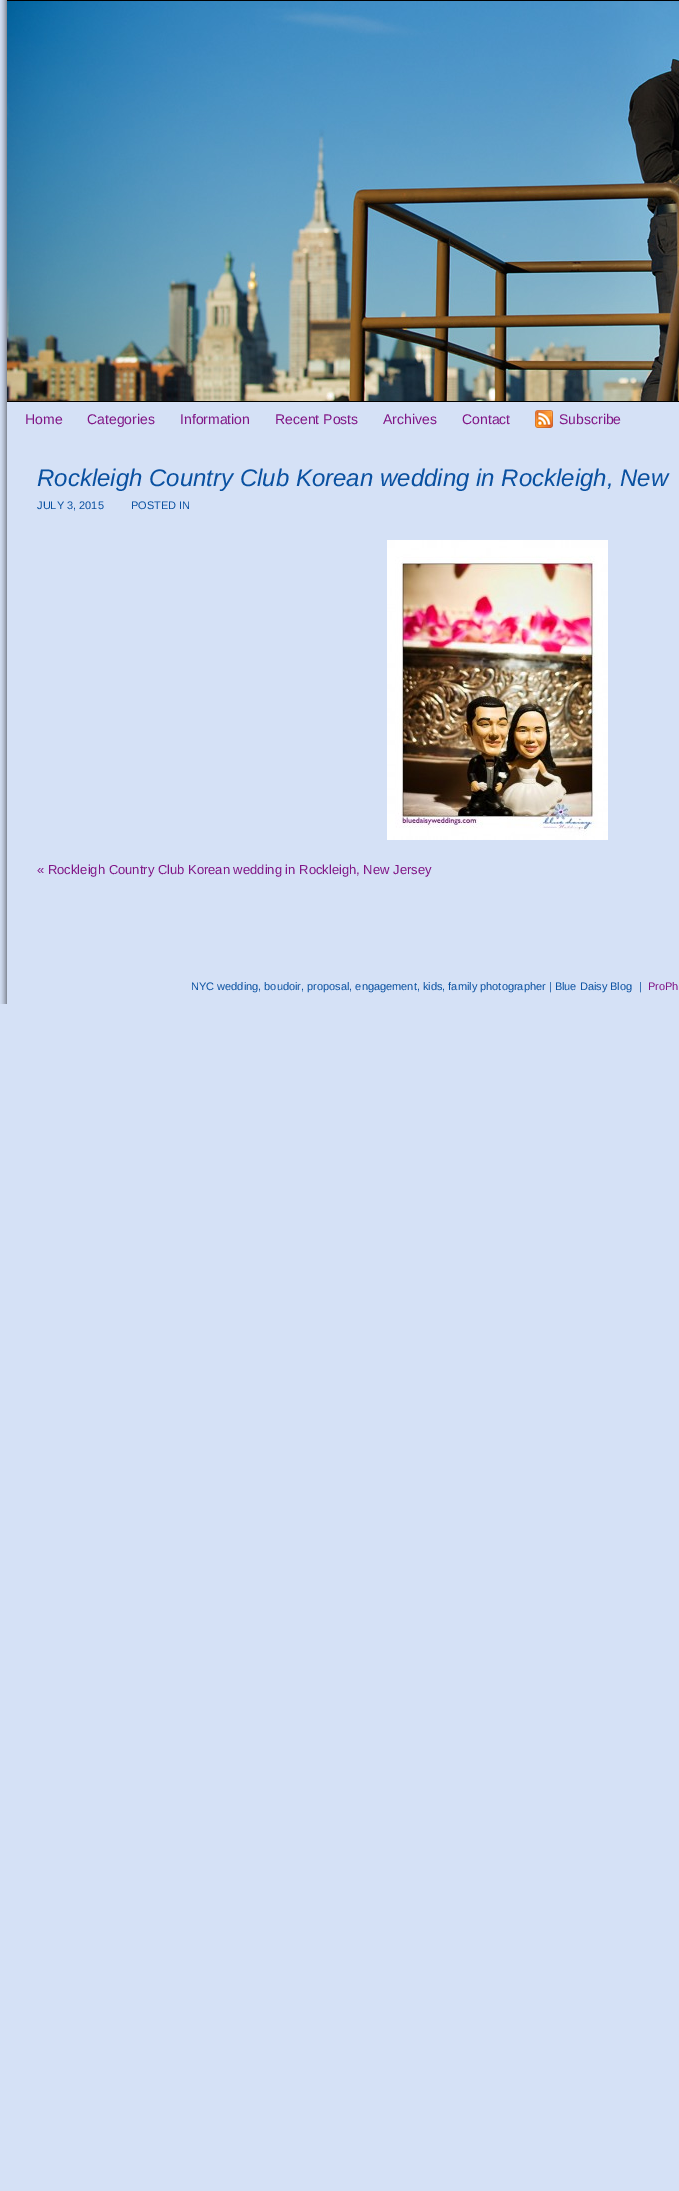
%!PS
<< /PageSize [679 2191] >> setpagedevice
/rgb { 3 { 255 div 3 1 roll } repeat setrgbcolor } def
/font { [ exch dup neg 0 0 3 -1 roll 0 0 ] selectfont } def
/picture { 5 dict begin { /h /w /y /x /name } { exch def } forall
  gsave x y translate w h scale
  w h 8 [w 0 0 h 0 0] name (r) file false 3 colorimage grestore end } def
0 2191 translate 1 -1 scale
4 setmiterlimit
213 225 246 rgb
0 0 679 2191 rectfill
(img/1.rgb) 0 0 7 1004 picture
0 0 0 rgb
7 0 672 1 rectfill
7 401 672 1 rectfill
(img/2.rgb) 7 1 672 400 picture
(img/3.rgb) 535 410 18 18 picture
(img/4.rgb) 387 540 221 300 picture
/LiberationSans-Regular 14 font
129 22 134 rgb
[
  [(Home) 25 424]
  [(Categories) 87 424]
  [(Information) 180 424]
  [(Recent Posts) 275 424]
  [(Archives) 383 424]
  [(Contact) 462 424]
  [(Subscribe) 559 424]
] { aload pop moveto show } forall
/LiberationSans-Italic 24 font
10 81 161 rgb
37 486 moveto (Rockleigh Country Club Korean wedding in Rockleigh, New) show
/LiberationSans-Regular 11 font
37 509 moveto (JULY 3, 2015) show
131 509 moveto (POSTED IN) show
/LiberationSans-Regular 13 font
129 22 134 rgb
37 874 moveto (« Rockleigh Country Club Korean wedding in Rockleigh, New Jersey) show
/LiberationSans-Regular 11 font
10 81 161 rgb
191 990 moveto (NYC wedding, boudoir, proposal, engagement, kids, family photographer | Blue Daisy Blog) show
639 990 moveto (|) show
129 22 134 rgb
648 990 moveto (ProPh) show
showpage
